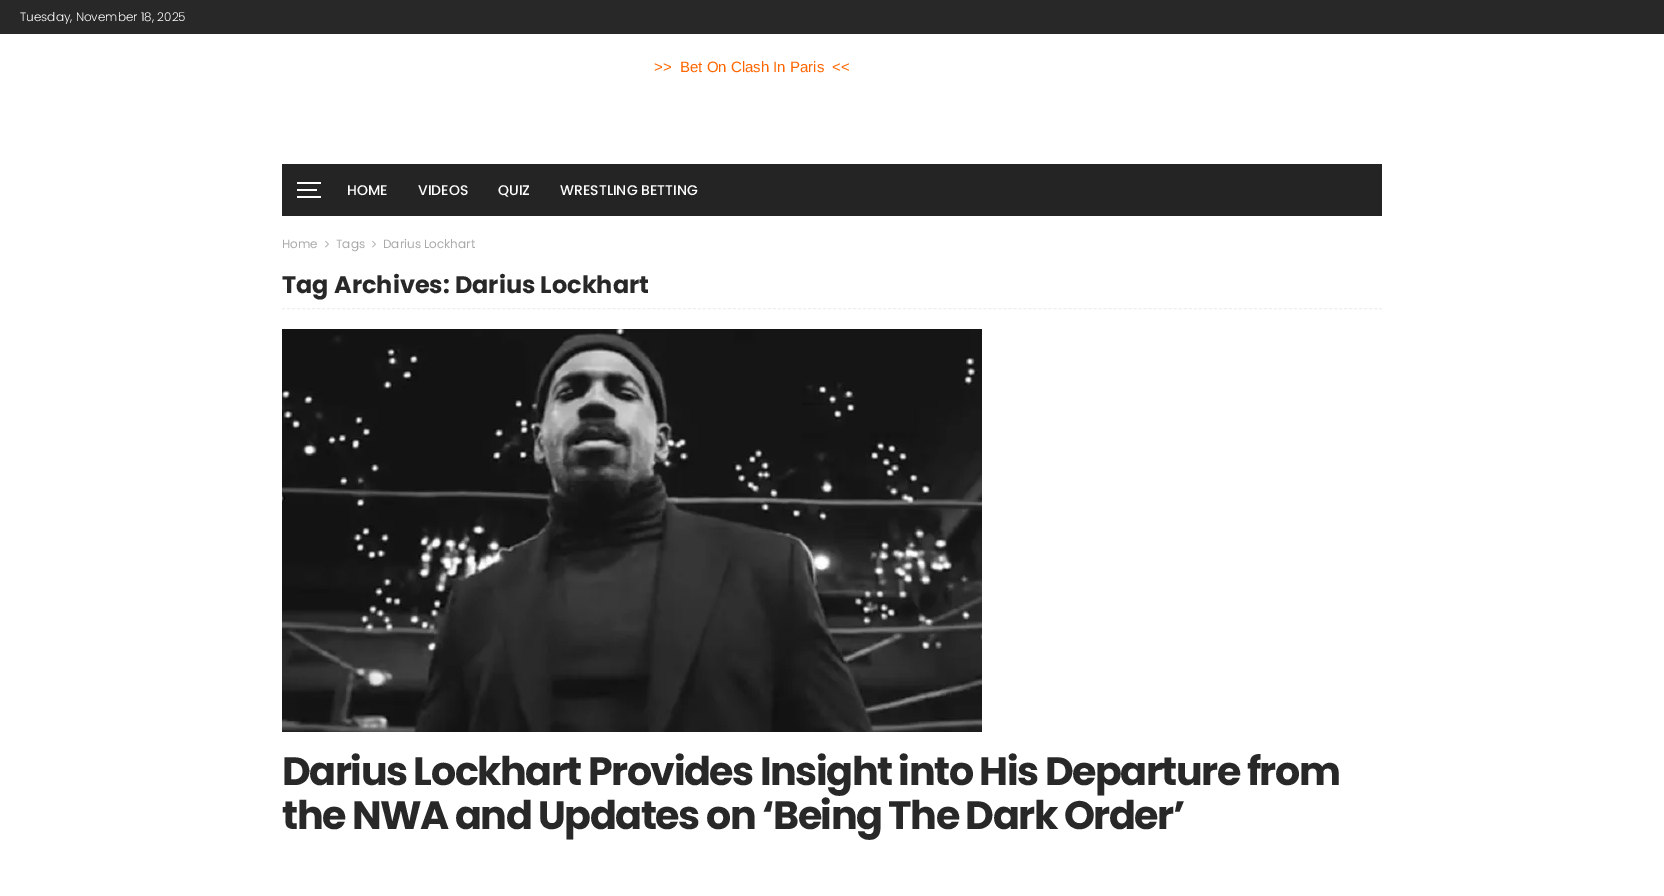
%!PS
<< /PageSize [1664 896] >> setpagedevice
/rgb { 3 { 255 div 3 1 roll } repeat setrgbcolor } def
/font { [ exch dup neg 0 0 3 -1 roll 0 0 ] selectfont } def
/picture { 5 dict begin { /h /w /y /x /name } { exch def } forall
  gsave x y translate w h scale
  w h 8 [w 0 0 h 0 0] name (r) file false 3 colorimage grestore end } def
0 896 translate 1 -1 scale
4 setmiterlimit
255 255 255 rgb
0 0 1664 896 rectfill
[
  [0 0 1664 34 40 40 40]
  [282 164 1100 52 36 36 36]
  [297 189 20 2 255 255 255]
  [297 182 24 2 255 255 255]
  [297 196 24 2 255 255 255]
] { aload pop rgb rectfill } forall
(img/1.rgb) 325 240 4 8 picture
(img/1.rgb) 372 240 4 8 picture
239 239 239 rgb
[3 2.01] 0 setdash
282 308.5 moveto 1382 308.5 lineto stroke
(img/2.rgb) 282 329 700 403 picture
/Poppins-Light 12 font
255 255 255 rgb
20 21 moveto (Tuesday, November 18, 2025) show
/LiberationSans-Regular 15 font
255 102 0 rgb
654 72 moveto (>>  Bet On Clash In Paris  <<) show
/Poppins-Medium 14 font
255 255 255 rgb
[
  [(HOME) 347 195]
  [(VIDEOS) 418 195]
  [(QUIZ) 498 195]
  [(WRESTLING BETTING) 560 195]
] { aload pop moveto show } forall
/Poppins-Regular 12 font
170 170 170 rgb
[
  [(Home) 282 248]
  [(Tags) 336 248]
  [(Darius Lockhart) 383 248]
] { aload pop moveto show } forall
/Poppins-Bold 24 font
40 40 40 rgb
282 293 moveto (Tag Archives: Darius Lockhart) show
/Poppins-Bold 39.6 font
282 785 moveto -1.45 0 (Darius Lockhart Provides Insight into His Departure from) ashow
282 829 moveto -1.45 0 (the NWA and Updates on ‘Being The Dark Order’) ashow
showpage
